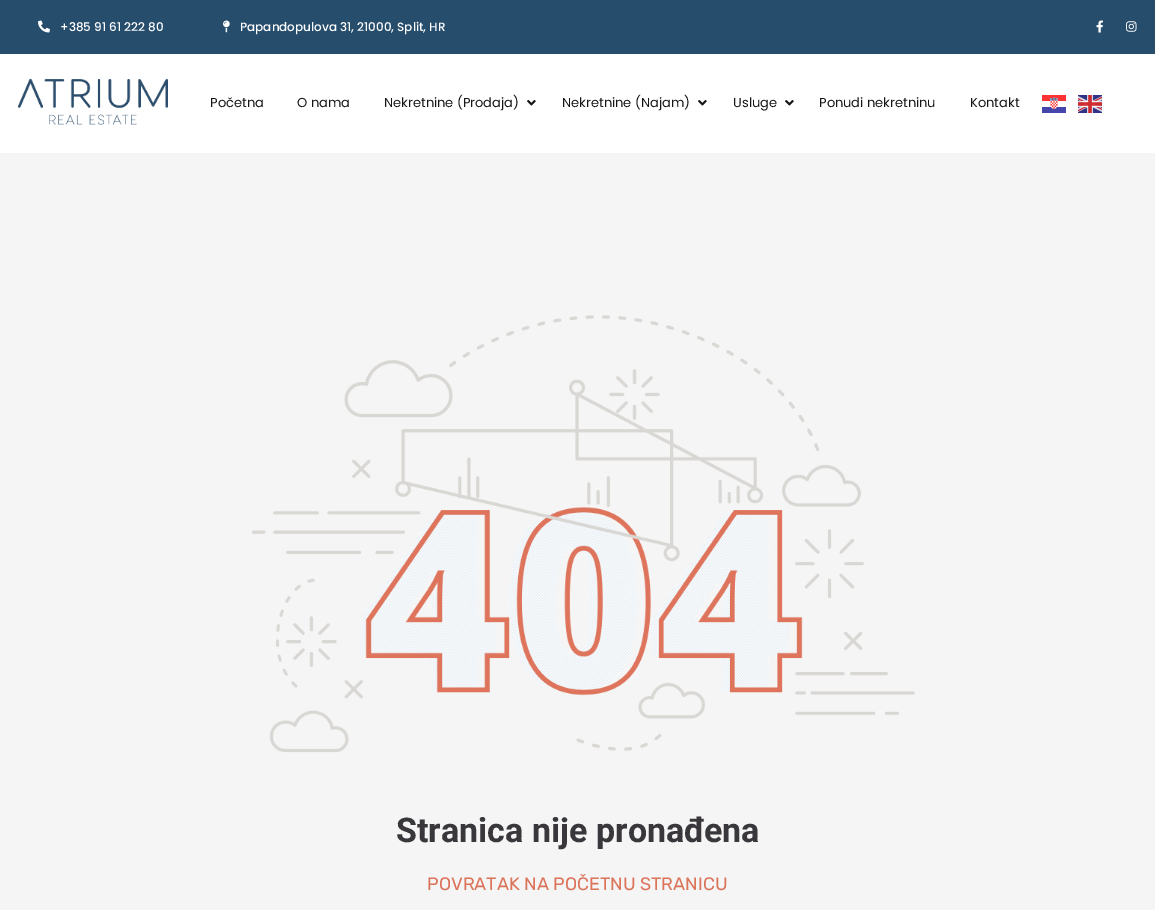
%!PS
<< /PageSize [1155 910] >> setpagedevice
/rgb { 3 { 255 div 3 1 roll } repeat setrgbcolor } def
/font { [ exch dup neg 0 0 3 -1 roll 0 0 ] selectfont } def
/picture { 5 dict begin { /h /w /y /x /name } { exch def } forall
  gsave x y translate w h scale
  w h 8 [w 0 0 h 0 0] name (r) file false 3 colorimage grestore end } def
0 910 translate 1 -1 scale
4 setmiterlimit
245 245 245 rgb
0 0 1155 910 rectfill
39 77 109 rgb
0 0 1155 54 rectfill
(img/1.rgb) 38 20 12 13 picture
(img/2.rgb) 223 20 7 13 picture
(img/3.rgb) 1096 20 7 13 picture
(img/4.rgb) 1126 21 11 11 picture
255 255 255 rgb
0 54 1155 99 rectfill
(img/5.rgb) 18 79 150 46 picture
(img/6.rgb) 527 100 9 6 picture
(img/6.rgb) 698 100 9 6 picture
(img/6.rgb) 785 100 9 6 picture
(img/7.rgb) 1042 95 24 18 picture
(img/8.rgb) 1078 95 24 18 picture
(img/9.rgb) 252 315 663 438 picture
/Poppins-Medium 12 font
60 31 moveto (+385 91 61 222 80) show
240 31 moveto (Papandopulova 31, 21000, Split, HR) show
/Poppins-Regular 13 font
22 22 22 rgb
[
  [(Početna) 210 107]
  [(O nama) 297 107]
  [(Nekretnine \(Prodaja\)) 384 107]
  [(Nekretnine \(Najam\)) 562 107]
  [(Usluge) 733 107]
  [(Ponudi nekretninu) 819 107]
  [(Kontakt) 970 107]
] { aload pop moveto show } forall
/Heebo-Bold 34 font
57 55 59 rgb
396 842 moveto (Stranica nije pronađena) show
/Rubik-Regular 18 font
220 116 90 rgb
427 890 moveto (POVRATAK NA POČETNU STRANICU) show
showpage
